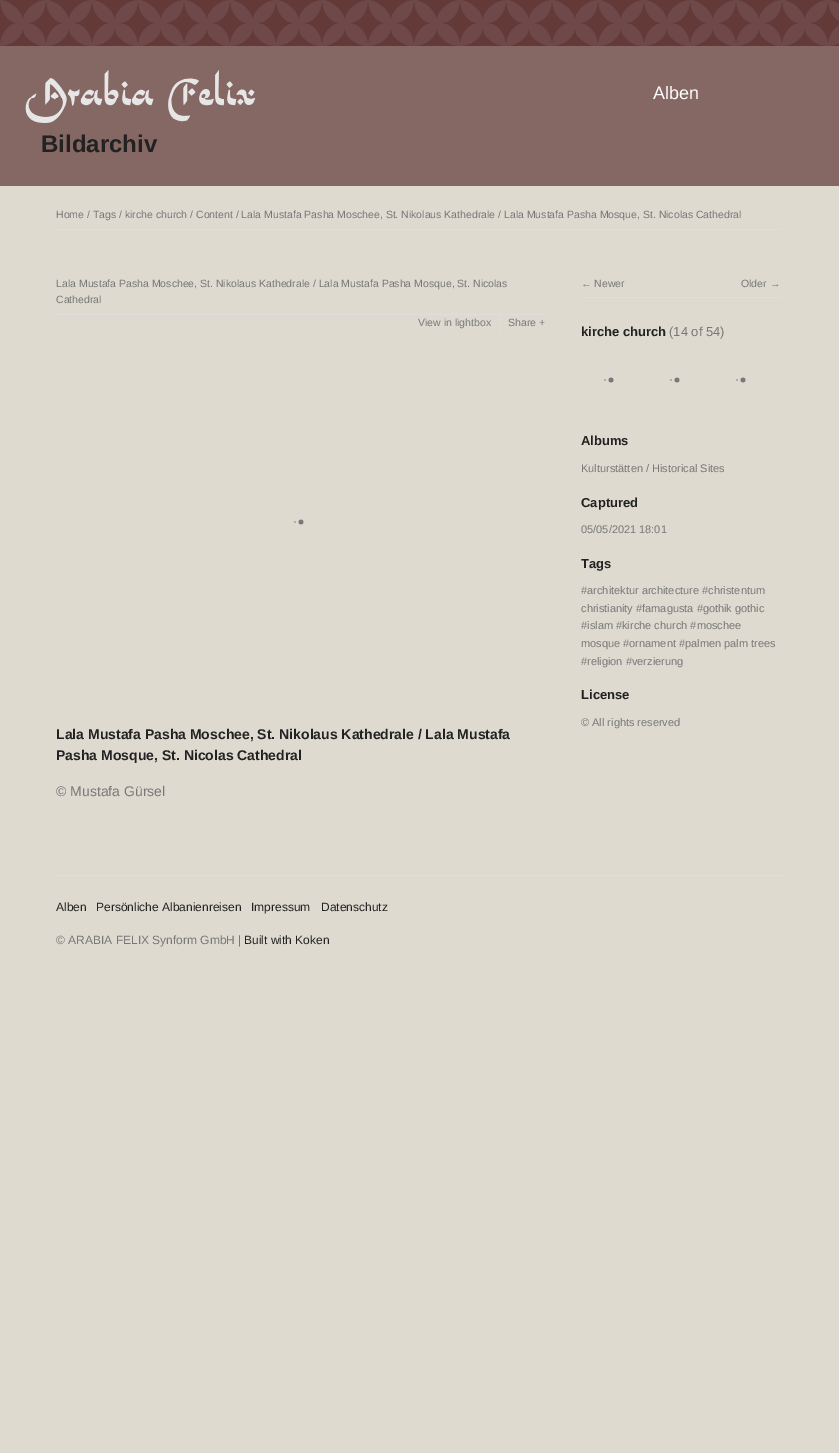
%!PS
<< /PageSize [839 1453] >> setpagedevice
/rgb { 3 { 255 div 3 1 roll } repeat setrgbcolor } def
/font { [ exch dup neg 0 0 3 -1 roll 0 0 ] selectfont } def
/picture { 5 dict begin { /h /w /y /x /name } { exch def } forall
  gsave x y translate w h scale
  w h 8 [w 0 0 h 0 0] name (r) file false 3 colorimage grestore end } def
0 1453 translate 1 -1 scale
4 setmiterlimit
222 218 208 rgb
0 0 839 1453 rectfill
100 58 57 rgb
0 0 839 46 rectfill
(img/1.rgb) 0 0 839 46 picture
133 103 100 rgb
0 46 839 140 rectfill
(img/2.rgb) 25 69 231 56 picture
[
  [56 229 725 1 222 222 222]
  [56 314 490 1 222 222 222]
  [499 314 1 23 222 222 222]
] { aload pop rgb rectfill } forall
(img/3.rgb) 294 519 10 6 picture
581 297 200 1 rectfill
(img/3.rgb) 604 377 10 6 picture
(img/3.rgb) 670 377 10 6 picture
(img/3.rgb) 736 377 10 6 picture
56 875 728 1 rectfill
/LiberationSans-Regular 18 font
255 255 255 rgb
653 99 moveto (Alben) show
/LiberationSans-Bold 24 font
34 34 34 rgb
41 152 moveto (Bildarchiv) show
/LiberationSans-Regular 10.5 font
120 120 120 rgb
[
  [(Home / Tags / kirche church / Content / Lala Mustafa Pasha Moschee, St. Nikolaus Kathedrale / Lala Mustafa Pasha Mosque, St. Nicolas Cathedral) 56 218]
  [(Lala Mustafa Pasha Moschee, St. Nikolaus Kathedrale / Lala Mustafa Pasha Mosque, St. Nicolas) 56 287]
  [(Cathedral) 56 303]
  [(View in lightbox) 418 326]
  [(Share +) 508 326]
] { aload pop moveto show } forall
/LiberationSans-Bold 14 font
34 34 34 rgb
56 739 moveto (Lala Mustafa Pasha Moschee, St. Nikolaus Kathedrale / Lala Mustafa) show
56 760 moveto (Pasha Mosque, St. Nicolas Cathedral) show
/LiberationSans-Regular 14 font
120 120 120 rgb
56 796 moveto (© Mustafa Gürsel) show
/LiberationSans-Regular 10.5 font
581 287 moveto (← Newer) show
741 287 moveto (Older →) show
/LiberationSans-Bold 13 font
34 34 34 rgb
581 336 moveto (kirche church) show
/LiberationSans-Regular 13 font
120 120 120 rgb
669 336 moveto (\(14 of 54\)) show
/LiberationSans-Bold 13 font
34 34 34 rgb
581 445 moveto (Albums) show
/LiberationSans-Regular 11 font
120 120 120 rgb
581 472 moveto (Kulturstätten / Historical Sites) show
/LiberationSans-Bold 13 font
34 34 34 rgb
581 507 moveto (Captured) show
/LiberationSans-Regular 11 font
120 120 120 rgb
581 533 moveto (05/05/2021 18:01) show
/LiberationSans-Bold 13 font
34 34 34 rgb
581 568 moveto (Tags) show
/LiberationSans-Regular 11 font
120 120 120 rgb
[
  [(#architektur architecture #christentum) 581 594]
  [(christianity #famagusta #gothik gothic) 581 612]
  [(#islam #kirche church #moschee) 581 629]
  [(mosque #ornament #palmen palm trees) 581 647]
  [(#religion #verzierung) 581 665]
] { aload pop moveto show } forall
/LiberationSans-Bold 13 font
34 34 34 rgb
581 699 moveto (License) show
/LiberationSans-Regular 11 font
120 120 120 rgb
581 726 moveto (© All rights reserved) show
/LiberationSans-Regular 12 font
34 34 34 rgb
[
  [(Alben) 56 911]
  [(Persönliche Albanienreisen) 96 911]
  [(Impressum) 251 911]
  [(Datenschutz) 321 911]
] { aload pop moveto show } forall
120 120 120 rgb
56 944 moveto (© ARABIA FELIX Synform GmbH |) show
34 34 34 rgb
244 944 moveto (Built with Koken) show
showpage
